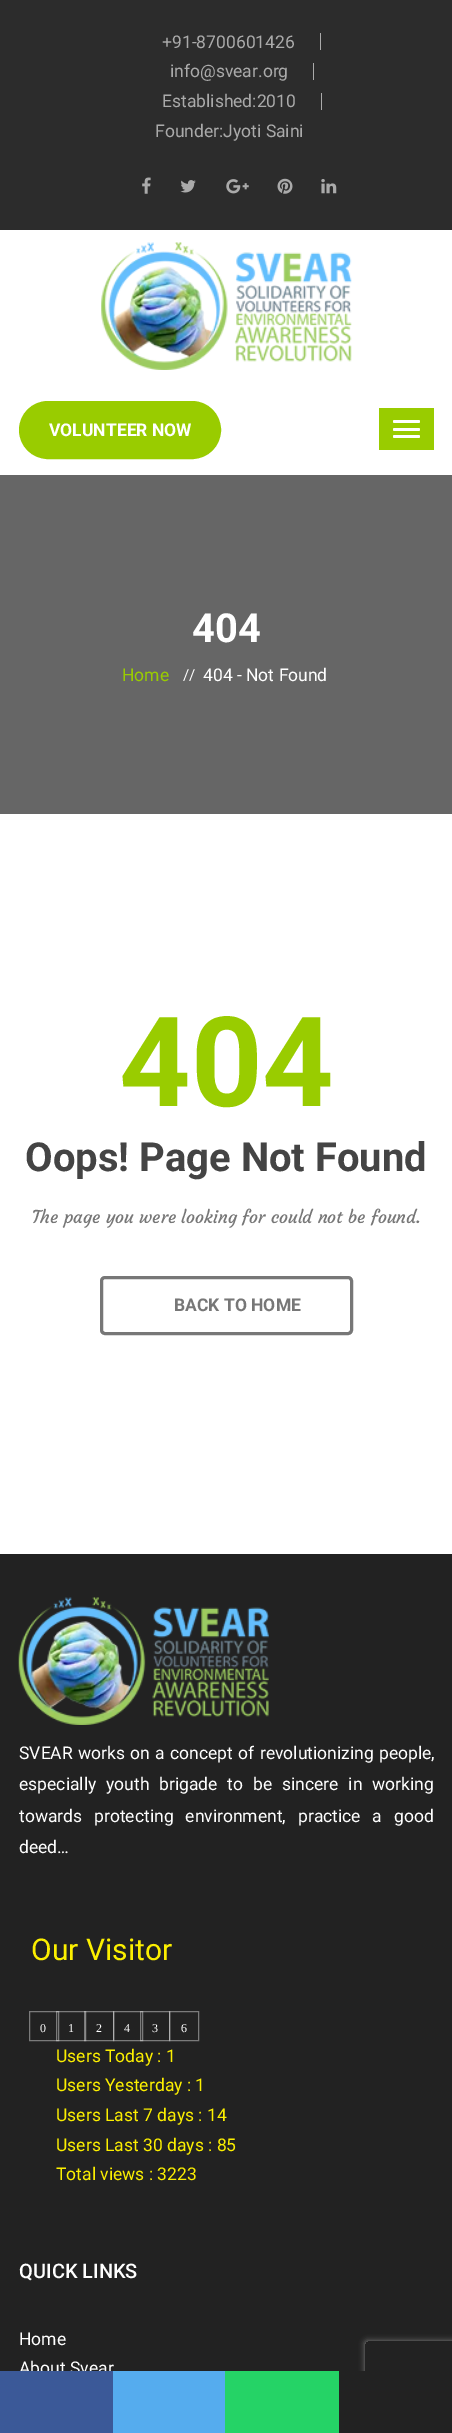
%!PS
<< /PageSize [452 2433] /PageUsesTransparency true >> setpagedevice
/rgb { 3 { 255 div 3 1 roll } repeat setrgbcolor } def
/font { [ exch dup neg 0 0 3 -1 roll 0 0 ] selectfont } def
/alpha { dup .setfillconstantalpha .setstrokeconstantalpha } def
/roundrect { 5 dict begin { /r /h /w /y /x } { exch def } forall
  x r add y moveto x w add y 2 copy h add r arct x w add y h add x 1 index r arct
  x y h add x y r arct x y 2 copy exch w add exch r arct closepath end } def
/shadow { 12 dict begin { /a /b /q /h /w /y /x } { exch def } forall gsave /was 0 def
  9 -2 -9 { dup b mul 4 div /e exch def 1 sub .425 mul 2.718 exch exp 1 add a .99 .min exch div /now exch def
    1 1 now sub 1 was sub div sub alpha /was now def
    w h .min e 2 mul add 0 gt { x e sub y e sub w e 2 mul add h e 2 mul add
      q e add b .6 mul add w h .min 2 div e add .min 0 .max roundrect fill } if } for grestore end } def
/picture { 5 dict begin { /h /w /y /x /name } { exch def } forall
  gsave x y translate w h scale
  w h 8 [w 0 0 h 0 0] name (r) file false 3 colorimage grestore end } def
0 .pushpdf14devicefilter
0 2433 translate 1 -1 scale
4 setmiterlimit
255 255 255 rgb
0 0 452 2433 rectfill
[
  [0 0 452 230 44 44 44]
  [320 33 1 17 170 170 170]
  [313 63 1 17 170 170 170]
  [321 93 1 17 170 170 170]
] { aload pop rgb rectfill } forall
(img/1.rgb) 142 177 9 17 picture
(img/2.rgb) 180 180 16 13 picture
(img/3.rgb) 226 179 23 15 picture
(img/4.rgb) 277 178 16 16 picture
(img/5.rgb) 321 179 16 15 picture
(img/6.rgb) 101 242 251 128 picture
153 204 0 rgb
20.5 402.5 199 55 27.5 roundrect gsave fill grestore
3 setlinewidth
stroke
379 408 55 42 rectfill
255 255 255 rgb
393 420 27 3 1.5 roundrect fill
393 428 27 3 1.5 roundrect fill
393 435 27 3 1.5 roundrect fill
102 102 102 rgb
0 475 452 339 rectfill
119 119 119 rgb
101.5 1277.5 250 56 3.5 roundrect stroke
34 34 34 rgb
0 1554 452 817 rectfill
(img/7.rgb) 18 1597 251 128 picture
122 122 122 rgb
1 setlinewidth
29.5 2011.5 29 29 rectstroke
0.4 alpha
255 255 255 rgb
56.5 2011.5 29 29 rectstroke
84.5 2011.5 29 29 rectstroke
113.5 2011.5 29 29 rectstroke
140.5 2011.5 29 29 rectstroke
169.5 2011.5 29 29 rectstroke
gsave
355 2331 moveto 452 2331 lineto 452 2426 lineto 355 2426 lineto closepath 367.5 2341 moveto 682.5 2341 lineto 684 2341 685 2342 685 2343.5 curveto 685 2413.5 lineto 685 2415 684 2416 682.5 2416 curveto 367.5 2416 lineto 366 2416 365 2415 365 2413.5 curveto 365 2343.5 lineto 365 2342 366 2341 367.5 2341 curveto closepath eoclip newpath
1 alpha
128 128 128 rgb
365 2341 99 75 2.5 3 1 shadow
grestore
1 alpha
37 211 102 rgb
225 2371 114 62 rectfill
34 34 34 rgb
339 2371 113 62 rectfill
/Roboto-Regular 17.5 font
170 170 170 rgb
[
  [(+91-8700601426) 162 48]
  [(info@svear.org) 170 77]
  [(Established:2010) 162 107]
  [(Founder:Jyoti Saini) 155 137]
] { aload pop moveto show } forall
/Roboto-Bold 17.5 font
255 255 255 rgb
49 436 moveto (VOLUNTEER NOW) show
/Roboto-Bold 40 font
192 642 moveto (404) show
/Roboto-Regular 17.5 font
153 204 0 rgb
122 681 moveto (Home) show
/Roboto-Regular 15 font
255 255 255 rgb
183 680 moveto (//) show
/Roboto-Regular 17.5 font
203 681 moveto (404 - Not Found) show
/Roboto-Bold 125 font
153 204 0 rgb
119 1106 moveto (404) show
/Roboto-Bold 40 font
68 68 68 rgb
25 1171 moveto (Oops! Page Not Found) show
/Courgette-Regular 17.5 font
119 119 119 rgb
32 1223 moveto (The page you were looking for could not be found.) show
/Roboto-Bold 17.5 font
174 1311 moveto (BACK TO HOME) show
/Roboto-Regular 17.5 font
255 255 255 rgb
19 1759 moveto 1 0 32 (SVEAR works on a concept of revolutionizing people,) widthshow
19 1790 moveto 5.5 0 32 (especially youth brigade to be sincere in working) widthshow
19 1822 moveto 7.5 0 32 (towards protecting environment, practice a good) widthshow
19 1853 moveto (deed…) show
/Roboto-Regular 30 font
252 239 0 rgb
31 1960 moveto (Our Visitor) show
/LiberationSerif-Regular 12 font
255 255 255 rgb
[
  [(0) 40 2032]
  [(1) 68 2032]
  [(2) 96 2032]
  [(4) 124 2032]
  [(3) 152 2032]
  [(6) 181 2032]
] { aload pop moveto show } forall
/Roboto-Regular 17.5 font
252 239 0 rgb
[
  [(Users Today : 1) 56 2062]
  [(Users Yesterday : 1) 56 2091]
  [(Users Last 7 days : 14) 56 2121]
  [(Users Last 30 days : 85) 56 2151]
  [(Total views : 3223) 56 2180]
] { aload pop moveto show } forall
/Roboto-Medium 20 font
255 255 255 rgb
19 2278 moveto (QUICK LINKS) show
/Roboto-Regular 17.5 font
19 2345 moveto (Home) show
19 2374 moveto (About Svear) show
59 89 152 rgb
0 2371 113 62 rectfill
85 172 238 rgb
113 2371 112 62 rectfill
.poppdf14devicefilter showpage
